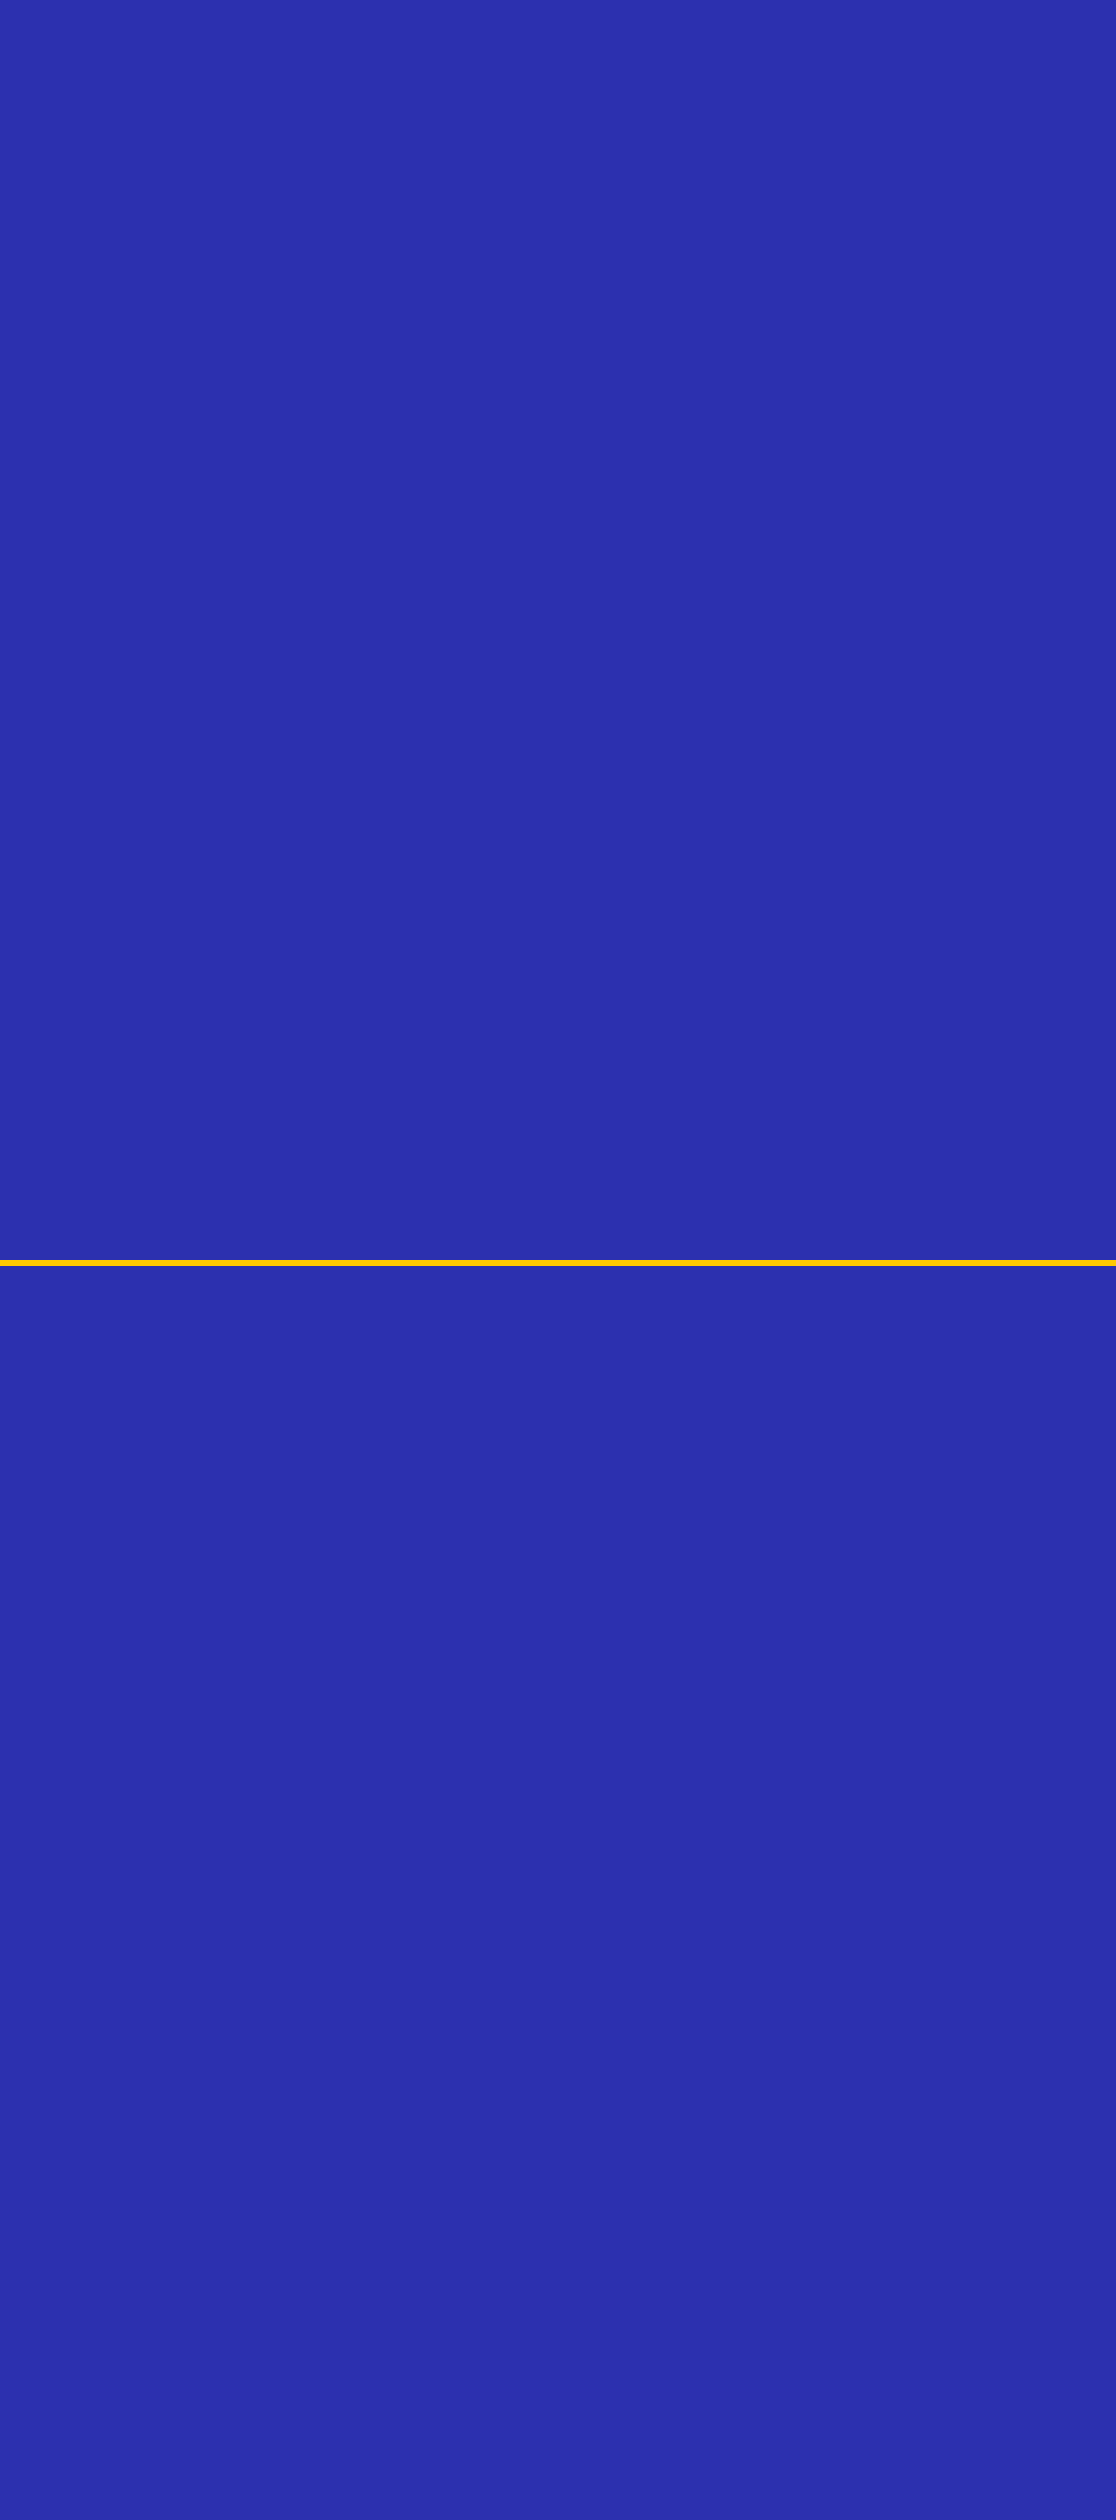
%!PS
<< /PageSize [1116 2520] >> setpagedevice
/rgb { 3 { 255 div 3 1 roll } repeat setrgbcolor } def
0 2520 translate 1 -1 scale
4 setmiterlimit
44 48 175 rgb
0 0 1116 2520 rectfill
255 200 0 rgb
0 1260 1116 6 rectfill
showpage
